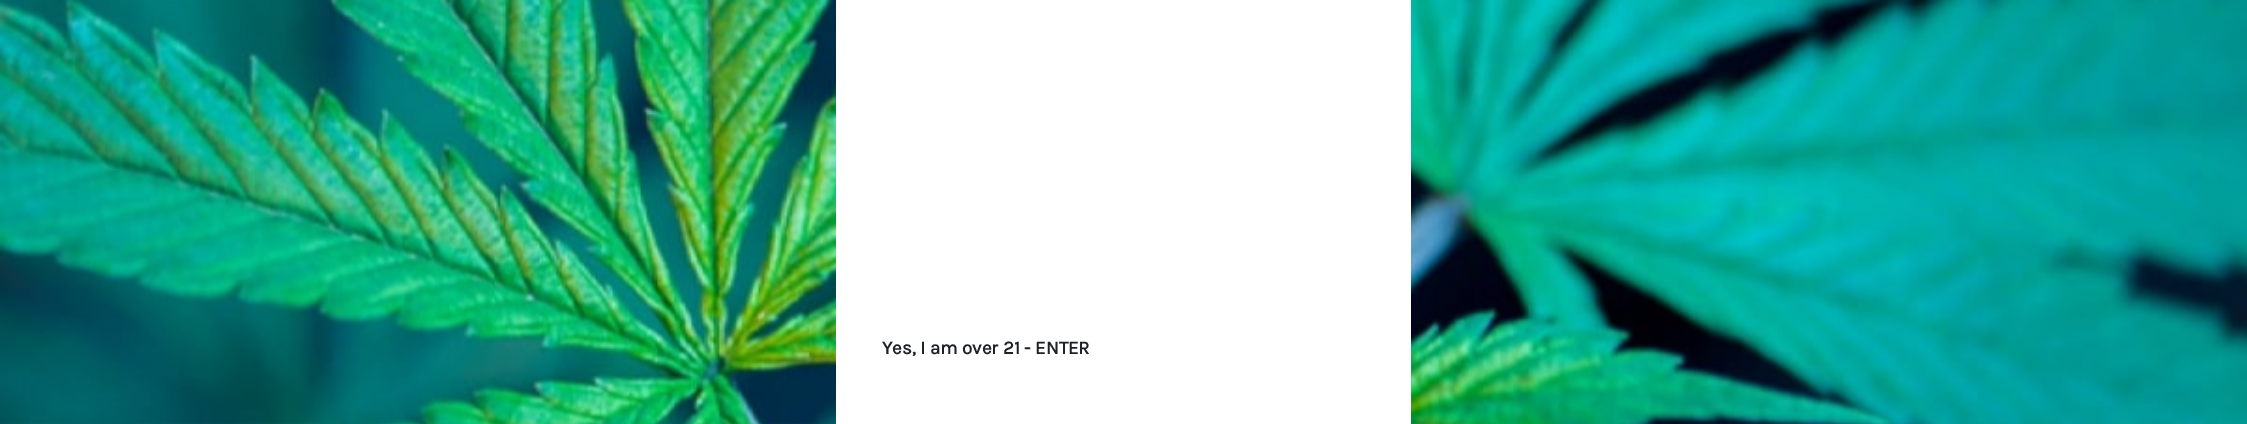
%!PS
<< /PageSize [2247 424] >> setpagedevice
/rgb { 3 { 255 div 3 1 roll } repeat setrgbcolor } def
/font { [ exch dup neg 0 0 3 -1 roll 0 0 ] selectfont } def
/picture { 5 dict begin { /h /w /y /x /name } { exch def } forall
  gsave x y translate w h scale
  w h 8 [w 0 0 h 0 0] name (r) file false 3 colorimage grestore end } def
0 424 translate 1 -1 scale
4 setmiterlimit
255 255 255 rgb
0 0 2247 424 rectfill
(img/1.rgb) 0 0 2247 424 picture
836 0 575 424 rectfill
/Karla-Bold 18.75 font
29 33 41 rgb
882 354 moveto (Yes, I am over 21 - ENTER) show
showpage
